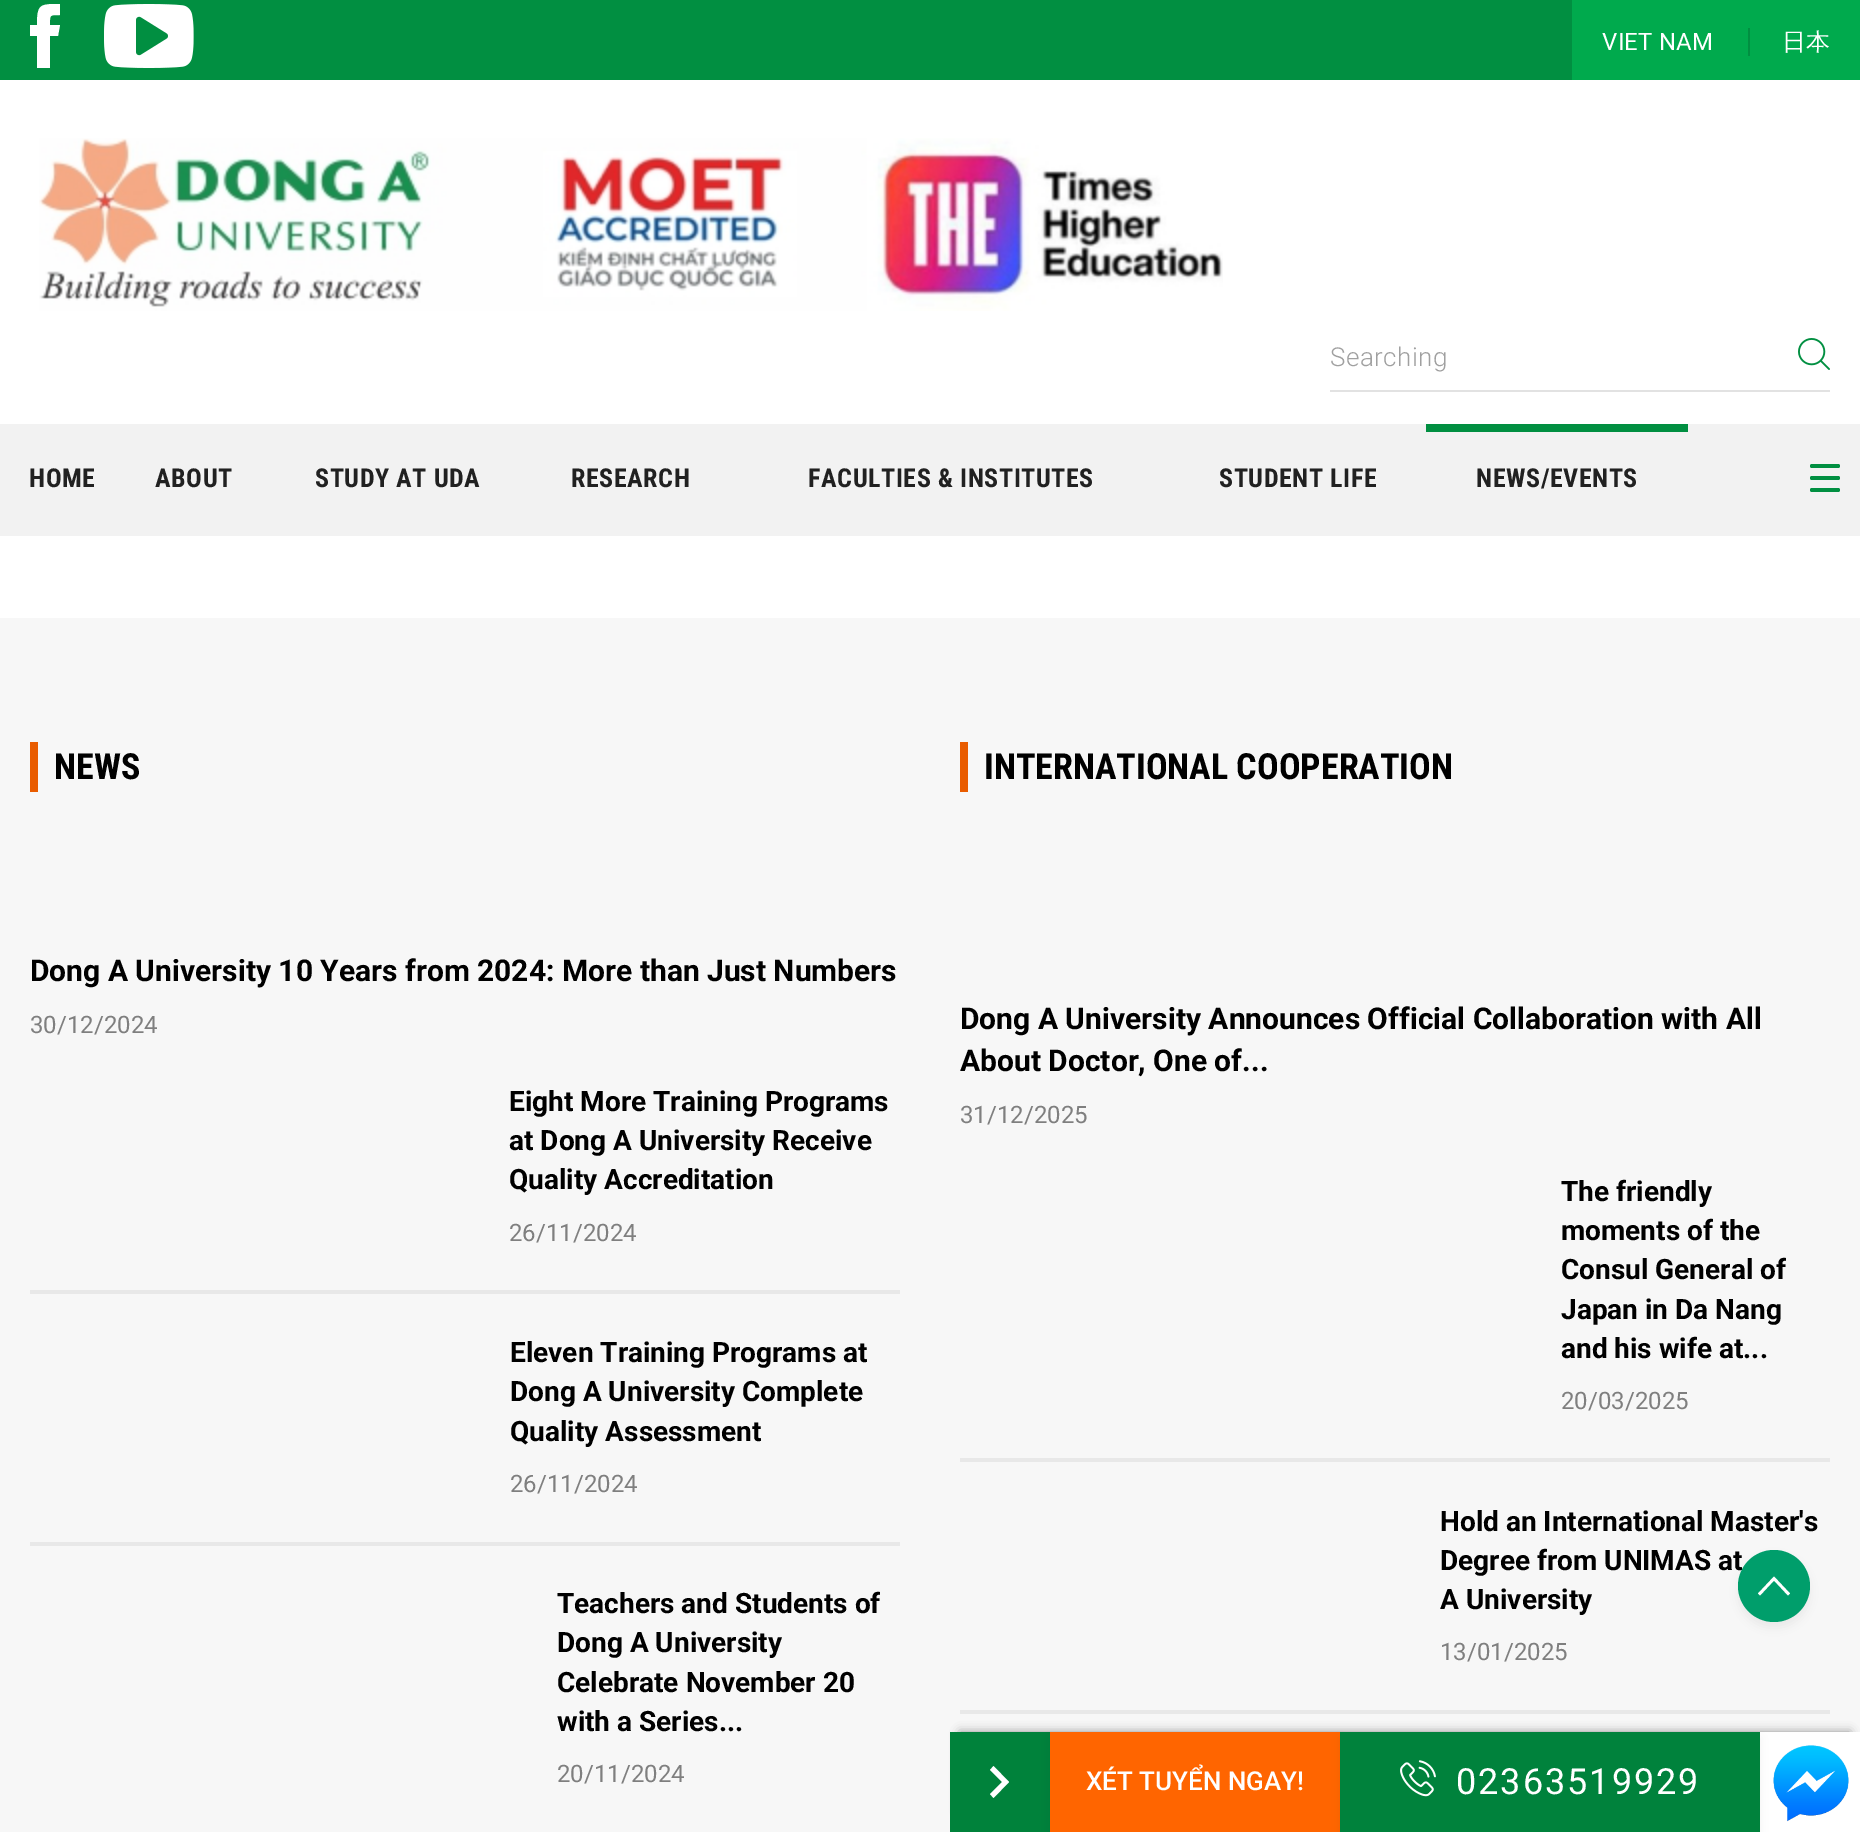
%!PS
<< /PageSize [1860 1832] /PageUsesTransparency true >> setpagedevice
/rgb { 3 { 255 div 3 1 roll } repeat setrgbcolor } def
/font { [ exch dup neg 0 0 3 -1 roll 0 0 ] selectfont } def
/alpha { dup .setfillconstantalpha .setstrokeconstantalpha } def
/circle { newpath 0 360 arc closepath } def
/roundrect { 5 dict begin { /r /h /w /y /x } { exch def } forall
  x r add y moveto x w add y 2 copy h add r arct x w add y h add x 1 index r arct
  x y h add x y r arct x y 2 copy exch w add exch r arct closepath end } def
/shadow { 12 dict begin { /a /b /q /h /w /y /x } { exch def } forall gsave /was 0 def
  9 -2 -9 { dup b mul 4 div /e exch def 1 sub .425 mul 2.718 exch exp 1 add a .99 .min exch div /now exch def
    1 1 now sub 1 was sub div sub alpha /was now def
    w h .min e 2 mul add 0 gt { x e sub y e sub w e 2 mul add h e 2 mul add
      q e add b .6 mul add w h .min 2 div e add .min 0 .max roundrect fill } if } for grestore end } def
/picture { 5 dict begin { /h /w /y /x /name } { exch def } forall
  gsave x y translate w h scale
  w h 8 [w 0 0 h 0 0] name (r) file false 3 colorimage grestore end } def
0 .pushpdf14devicefilter
0 1832 translate 1 -1 scale
4 setmiterlimit
247 247 247 rgb
0 0 1860 1832 rectfill
1 143 65 rgb
0 0 1572 80 rectfill
255 255 255 rgb
30 36 moveto 37 36 lineto 37 68 lineto 50 68 lineto 50 36 lineto 58 36 lineto 60 25 lineto 50 25 lineto 50 15 49 15 60 15 curveto 60 4 lineto 40 4 37 4 37 25 curveto 30 25 lineto closepath fill
(img/1.rgb) 104 4 90 64 picture
[
  [1572 0 288 80 0 170 77]
  [1748 28 2 28 1 143 65]
  [0 80 1860 344 255 255 255]
] { aload pop rgb rectfill } forall
(img/2.rgb) 39 138 1184 173 picture
226 226 226 rgb
1330 390 500 2 rectfill
(img/3.rgb) 1798 338 32 32 picture
242 242 242 rgb
0 424 1860 112 rectfill
1 143 65 rgb
1426 424 262 8 rectfill
1810 464 30 4 2 roundrect fill
1810 476 30 4 2 roundrect fill
1810 488 30 4 2 roundrect fill
[
  [0 536 1860 82 255 255 255]
  [30 742 8 50 233 92 0]
  [30 1290 870 4 232 232 232]
  [30 1542 870 4 232 232 232]
  [960 742 8 50 233 92 0]
  [960 1458 870 4 232 232 232]
  [960 1710 870 4 232 232 232]
] { aload pop rgb rectfill } forall
0 0 0 rgb
1738 1556 72 72 36 5 0.05 shadow
960 1732 890 80 0 5 0.4 shadow
0 130 59 rgb
950 1732 100 100 rectfill
255 255 255 rgb
990 1770 moveto 1002 1782 lineto 990 1794 lineto 993.5 1798 lineto 1009 1782 lineto 993.5 1766 lineto closepath fill
0 0 0 rgb
1050 1738 290 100 0 5 0.05 shadow
255 101 0 rgb
1050 1732 290 100 rectfill
255 255 255 rgb
1760 1732 100 100 rectfill
(img/5.rgb) 1773 1745 76 77 picture
0 0 0 rgb
1340 1738 420 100 0 5 0.05 shadow
0 130 60 rgb
1340 1732 420 100 rectfill
(img/4.rgb) 1400 1760 36 37 picture
/Roboto-Regular 24 font
255 255 255 rgb
1602 50 moveto 0.25 0 (VIET NAM) ashow
/WenQuanYiZenHei-Medium 24 font
1782 50 moveto 0.25 0 (日本) ashow
/Roboto-Light 26 font
160 160 160 rgb
1330 366 moveto 0.4 0 (Searching) ashow
/RobotoCondensed-Bold 26 font
33 33 33 rgb
29 487 moveto 0.6 0 (HOME) ashow
155 487 moveto 0.6 0 (ABOUT) ashow
315 487 moveto 0.6 0 (STUDY AT UDA) ashow
571 487 moveto 0.6 0 (RESEARCH) ashow
808 487 moveto 0.6 0 (FACULTIES & INSTITUTES) ashow
1219 487 moveto 0.6 0 (STUDENT LIFE) ashow
1476 487 moveto 0.6 0 (NEWS/EVENTS) ashow
/RobotoCondensed-Bold 36 font
0 0 0 rgb
54 779 moveto (NEWS) show
/Roboto-Bold 30 font
30 981 moveto (Dong A University 10 Years from 2024: More than Just Numbers) show
/Roboto-Regular 24 font
127 127 127 rgb
30 1033 moveto (30/12/2024) show
/Roboto-Bold 28 font
0 0 0 rgb
[
  [(Eight More Training Programs) 509 1111]
  [(at Dong A University Receive) 509 1150]
  [(Quality Accreditation) 509 1189]
] { aload pop moveto show } forall
/Roboto-Regular 24 font
127 127 127 rgb
509 1241 moveto (26/11/2024) show
/Roboto-Bold 28 font
0 0 0 rgb
[
  [(Eleven Training Programs at) 510 1362]
  [(Dong A University Complete) 510 1401]
  [(Quality Assessment) 510 1441]
] { aload pop moveto show } forall
/Roboto-Regular 24 font
127 127 127 rgb
510 1492 moveto (26/11/2024) show
/Roboto-Bold 28 font
0 0 0 rgb
[
  [(Teachers and Students of) 557 1613]
  [(Dong A University) 557 1652]
  [(Celebrate November 20) 557 1692]
  [(with a Series...) 557 1731]
] { aload pop moveto show } forall
/Roboto-Regular 24 font
127 127 127 rgb
557 1782 moveto (20/11/2024) show
/RobotoCondensed-Bold 36 font
0 0 0 rgb
984 779 moveto (INTERNATIONAL COOPERATION) show
/Roboto-Bold 30 font
960 1029 moveto (Dong A University Announces Official Collaboration with All) show
960 1071 moveto (About Doctor, One of...) show
/Roboto-Regular 24 font
127 127 127 rgb
960 1123 moveto (31/12/2025) show
/Roboto-Bold 28 font
0 0 0 rgb
[
  [(The friendly) 1561 1201]
  [(moments of the) 1561 1240]
  [(Consul General of) 1561 1279]
  [(Japan in Da Nang) 1561 1319]
  [(and his wife at...) 1561 1358]
] { aload pop moveto show } forall
/Roboto-Regular 24 font
127 127 127 rgb
1561 1409 moveto (20/03/2025) show
/Roboto-Bold 28 font
0 0 0 rgb
[
  [(Hold an International Master's) 1440 1531]
  [(Degree from UNIMAS at) 1440 1570]
  [(A University) 1440 1609]
] { aload pop moveto show } forall
/Roboto-Regular 24 font
127 127 127 rgb
1440 1660 moveto (13/01/2025) show
0 158 107 rgb
1774 1586 36 circle fill
255 255 255 rgb
1760 1595.5 moveto 1758 1593.5 lineto 1774 1576.5 lineto 1790 1593.5 lineto 1788 1595.5 lineto 1774 1580.5 lineto closepath fill
/Roboto-Medium 26 font
1086 1790 moveto (XÉT TUYỂN NGAY!) show
/Roboto-Regular 36 font
1456 1794 moveto 2 0 (02363519929) ashow
.poppdf14devicefilter showpage
